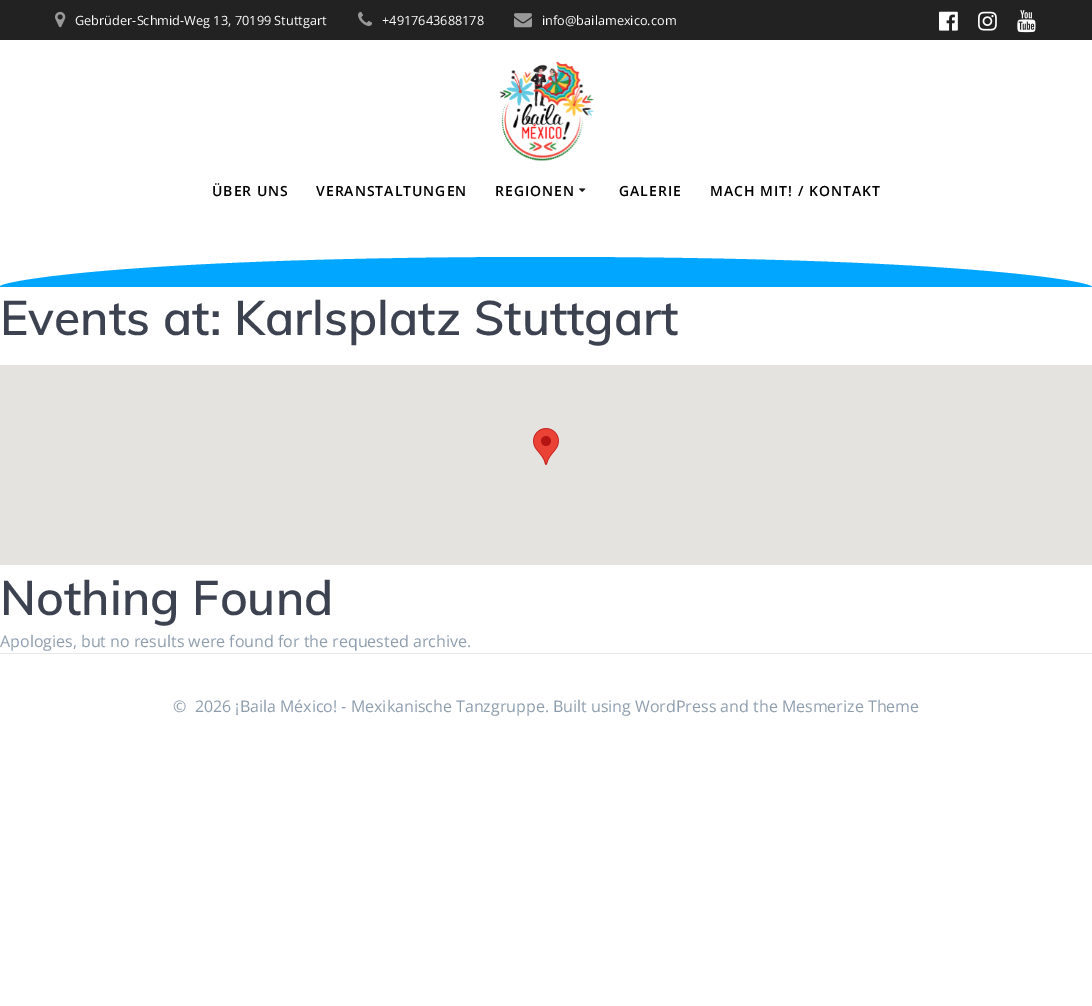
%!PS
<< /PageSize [1092 1006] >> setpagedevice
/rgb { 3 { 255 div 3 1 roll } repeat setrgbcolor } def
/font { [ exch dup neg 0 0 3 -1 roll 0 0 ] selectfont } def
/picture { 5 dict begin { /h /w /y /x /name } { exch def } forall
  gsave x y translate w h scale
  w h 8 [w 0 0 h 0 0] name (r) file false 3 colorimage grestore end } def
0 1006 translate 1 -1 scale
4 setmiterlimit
255 255 255 rgb
0 0 1092 1006 rectfill
34 34 34 rgb
0 0 1092 40 rectfill
(img/1.rgb) 55 11 11 17 picture
(img/2.rgb) 358 11 15 15 picture
(img/3.rgb) 514 13 18 15 picture
(img/4.rgb) 939 11 19 20 picture
(img/5.rgb) 978 11 19 20 picture
(img/6.rgb) 1017 10 19 23 picture
(img/7.rgb) 499 61 95 100 picture
(img/8.rgb) 579 188 7 4 picture
gsave
0 256 1092 31 rectclip
0 166 255 rgb
-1 287 moveto -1 288 lineto 1092 288 lineto 1092 287 lineto 1091 281 953 257 545 257 curveto 137 257 -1 281 -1 287 curveto closepath fill
grestore
229 227 223 rgb
0 365 1092 200 rectfill
(img/9.rgb) 533 428 26 37 picture
232 232 232 rgb
0 653 1092 1 rectfill
/OpenSans-Regular 12.75 font
255 255 255 rgb
[
  [(Gebrüder-Schmid-Weg 13, 70199 Stuttgart) 75 25]
  [(+4917643688178) 382 25]
  [(info@bailamexico.com) 542 25]
] { aload pop moveto show } forall
/OpenSans-SemiBold 14 font
0 0 0 rgb
212 196 moveto 1 0 (ÜBER UNS) ashow
316 196 moveto 1 0 (VERANSTALTUNGEN) ashow
495 196 moveto 1 0 (REGIONEN) ashow
619 196 moveto 1 0 (GALERIE) ashow
710 196 moveto 1 0 (MACH MIT! / KONTAKT) ashow
/Muli-SemiBold 48 font
60 66 79 rgb
0 335 moveto (Events at: Karlsplatz Stuttgart) show
0 615 moveto (Nothing Found) show
/OpenSans-Regular 16 font
142 157 174 rgb
0 647 moveto (Apologies, but no results were found for the requested archive.) show
173 712 moveto (©  2026 ¡Baila México! - Mexikanische Tanzgruppe. Built using WordPress and the Mesmerize Theme) show
showpage
